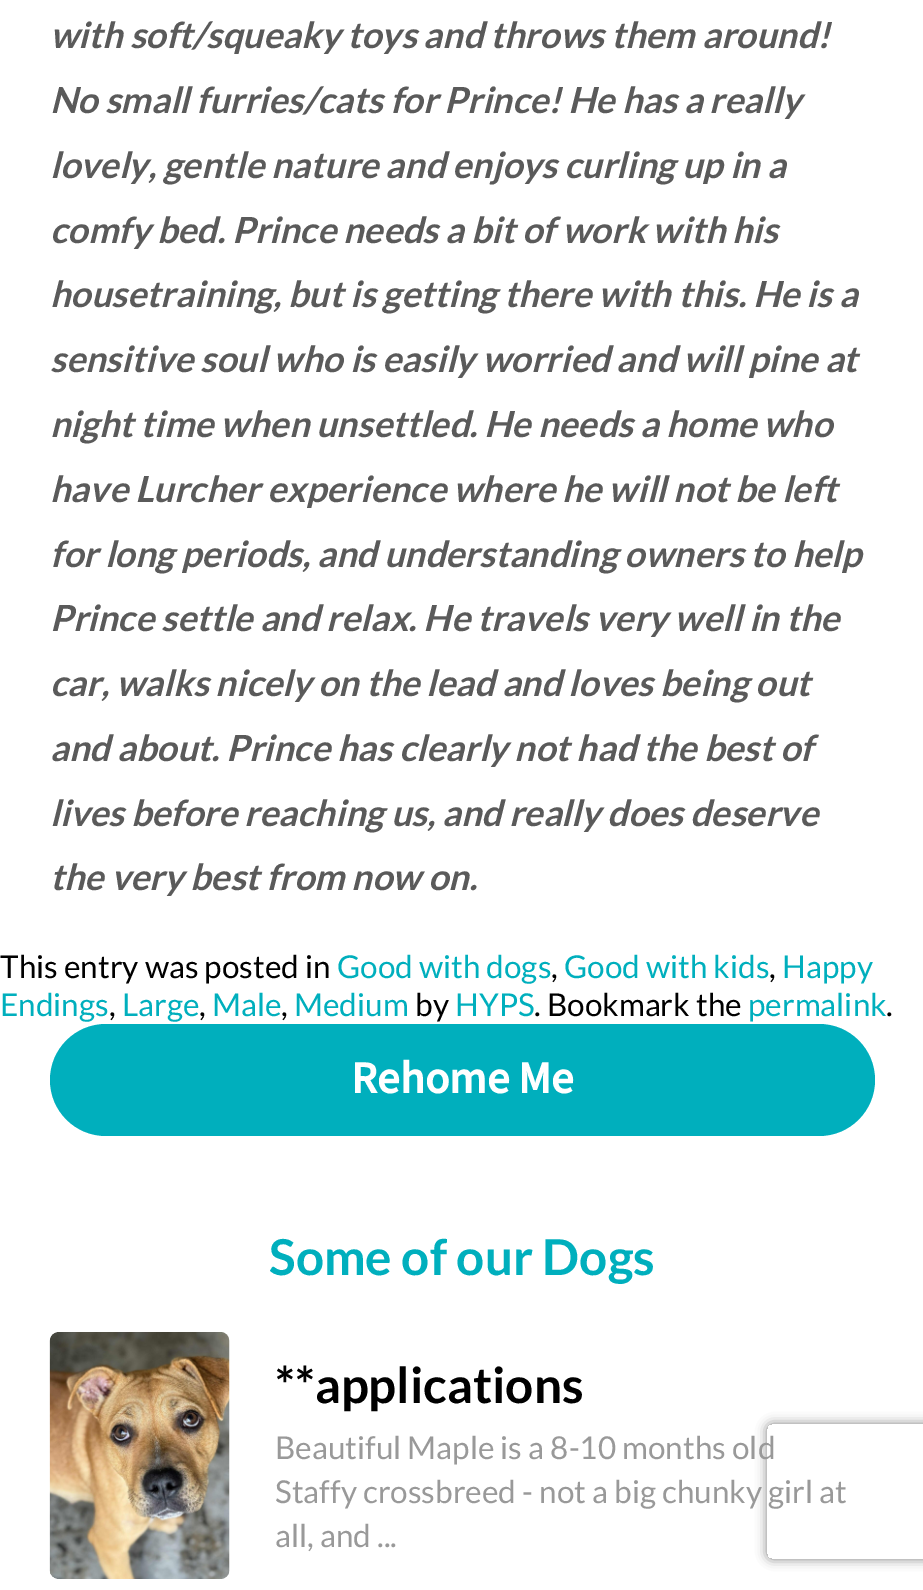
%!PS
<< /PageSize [923 1590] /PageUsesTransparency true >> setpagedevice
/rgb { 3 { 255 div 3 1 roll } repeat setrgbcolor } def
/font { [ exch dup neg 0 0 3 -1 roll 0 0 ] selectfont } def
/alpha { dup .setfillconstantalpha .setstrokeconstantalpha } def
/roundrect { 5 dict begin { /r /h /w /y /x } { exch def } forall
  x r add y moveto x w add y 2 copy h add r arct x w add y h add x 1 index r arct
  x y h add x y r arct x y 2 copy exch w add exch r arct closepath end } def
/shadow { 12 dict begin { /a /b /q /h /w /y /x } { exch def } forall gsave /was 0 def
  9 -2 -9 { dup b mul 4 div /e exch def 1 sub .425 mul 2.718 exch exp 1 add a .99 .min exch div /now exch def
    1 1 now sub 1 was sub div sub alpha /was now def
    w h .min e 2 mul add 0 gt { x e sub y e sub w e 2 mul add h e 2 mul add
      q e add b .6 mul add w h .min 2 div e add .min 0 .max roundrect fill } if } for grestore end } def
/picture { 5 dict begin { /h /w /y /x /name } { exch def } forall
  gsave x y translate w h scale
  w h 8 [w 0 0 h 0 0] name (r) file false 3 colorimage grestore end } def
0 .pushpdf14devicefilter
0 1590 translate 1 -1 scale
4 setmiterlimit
255 255 255 rgb
0 0 923 1590 rectfill
0 175 189 rgb
50 1024 825 112 56 roundrect fill
(img/1.rgb) 49 1332 181 247 picture
gsave
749 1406 moveto 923 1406 lineto 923 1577 lineto 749 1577 lineto closepath 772 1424 moveto 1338 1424 lineto 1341 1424 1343 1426 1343 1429 curveto 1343 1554 lineto 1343 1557 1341 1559 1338 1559 curveto 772 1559 lineto 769 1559 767 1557 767 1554 curveto 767 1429 lineto 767 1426 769 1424 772 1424 curveto closepath eoclip newpath
128 128 128 rgb
767 1424 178 135 5 5.5 1 shadow
grestore
/Lato-BoldItalic 36 font
90 90 90 rgb
[
  [(with soft/squeaky toys and throws them around!) 50 48]
  [(No small furries/cats for Prince! He has a really) 50 113]
  [(lovely, gentle nature and enjoys curling up in a) 50 178]
  [(comfy bed. Prince needs a bit of work with his) 50 243]
  [(housetraining, but is getting there with this. He is a) 50 307]
  [(sensitive soul who is easily worried and will pine at) 50 372]
  [(night time when unsettled. He needs a home who) 50 437]
  [(have Lurcher experience where he will not be left) 50 502]
  [(for long periods, and understanding owners to help) 50 567]
  [(Prince settle and relax. He travels very well in the) 50 631]
  [(car, walks nicely on the lead and loves being out) 50 696]
  [(and about. Prince has clearly not had the best of) 50 761]
  [(lives before reaching us, and really does deserve) 50 826]
  [(the very best from now on.) 50 890]
] { aload pop moveto show } forall
/Lato-Regular 31.5 font
0 0 0 rgb
0 978 moveto (This entry was posted in) show
0 175 189 rgb
337 978 moveto (Good with dogs) show
0 0 0 rgb
551 978 moveto (,) show
0 175 189 rgb
564 978 moveto (Good with kids) show
0 0 0 rgb
769 978 moveto (,) show
0 175 189 rgb
782 978 moveto (Happy) show
0 1016 moveto (Endings) show
0 0 0 rgb
109 1016 moveto (,) show
0 175 189 rgb
122 1016 moveto (Large) show
0 0 0 rgb
199 1016 moveto (,) show
0 175 189 rgb
212 1016 moveto (Male) show
0 0 0 rgb
281 1016 moveto (,) show
0 175 189 rgb
294 1016 moveto (Medium) show
0 0 0 rgb
415 1016 moveto (by) show
0 175 189 rgb
455 1016 moveto (HYPS) show
0 0 0 rgb
534 1016 moveto (. Bookmark the) show
0 175 189 rgb
748 1016 moveto (permalink) show
0 0 0 rgb
886 1016 moveto (.) show
/Mada-Bold 45 font
255 255 255 rgb
351 1093 moveto (Rehome Me) show
/Lato-Bold 49.5 font
0 175 189 rgb
269 1275 moveto (Some of our Dogs) show
0 0 0 rgb
275 1403 moveto (**applications) show
/Lato-Regular 31.5 font
153 153 153 rgb
[
  [(Beautiful Maple is a 8-10 months old) 275 1459]
  [(Staffy crossbreed - not a big chunky girl at) 275 1503]
  [(all, and ...) 275 1547]
] { aload pop moveto show } forall
.poppdf14devicefilter showpage
